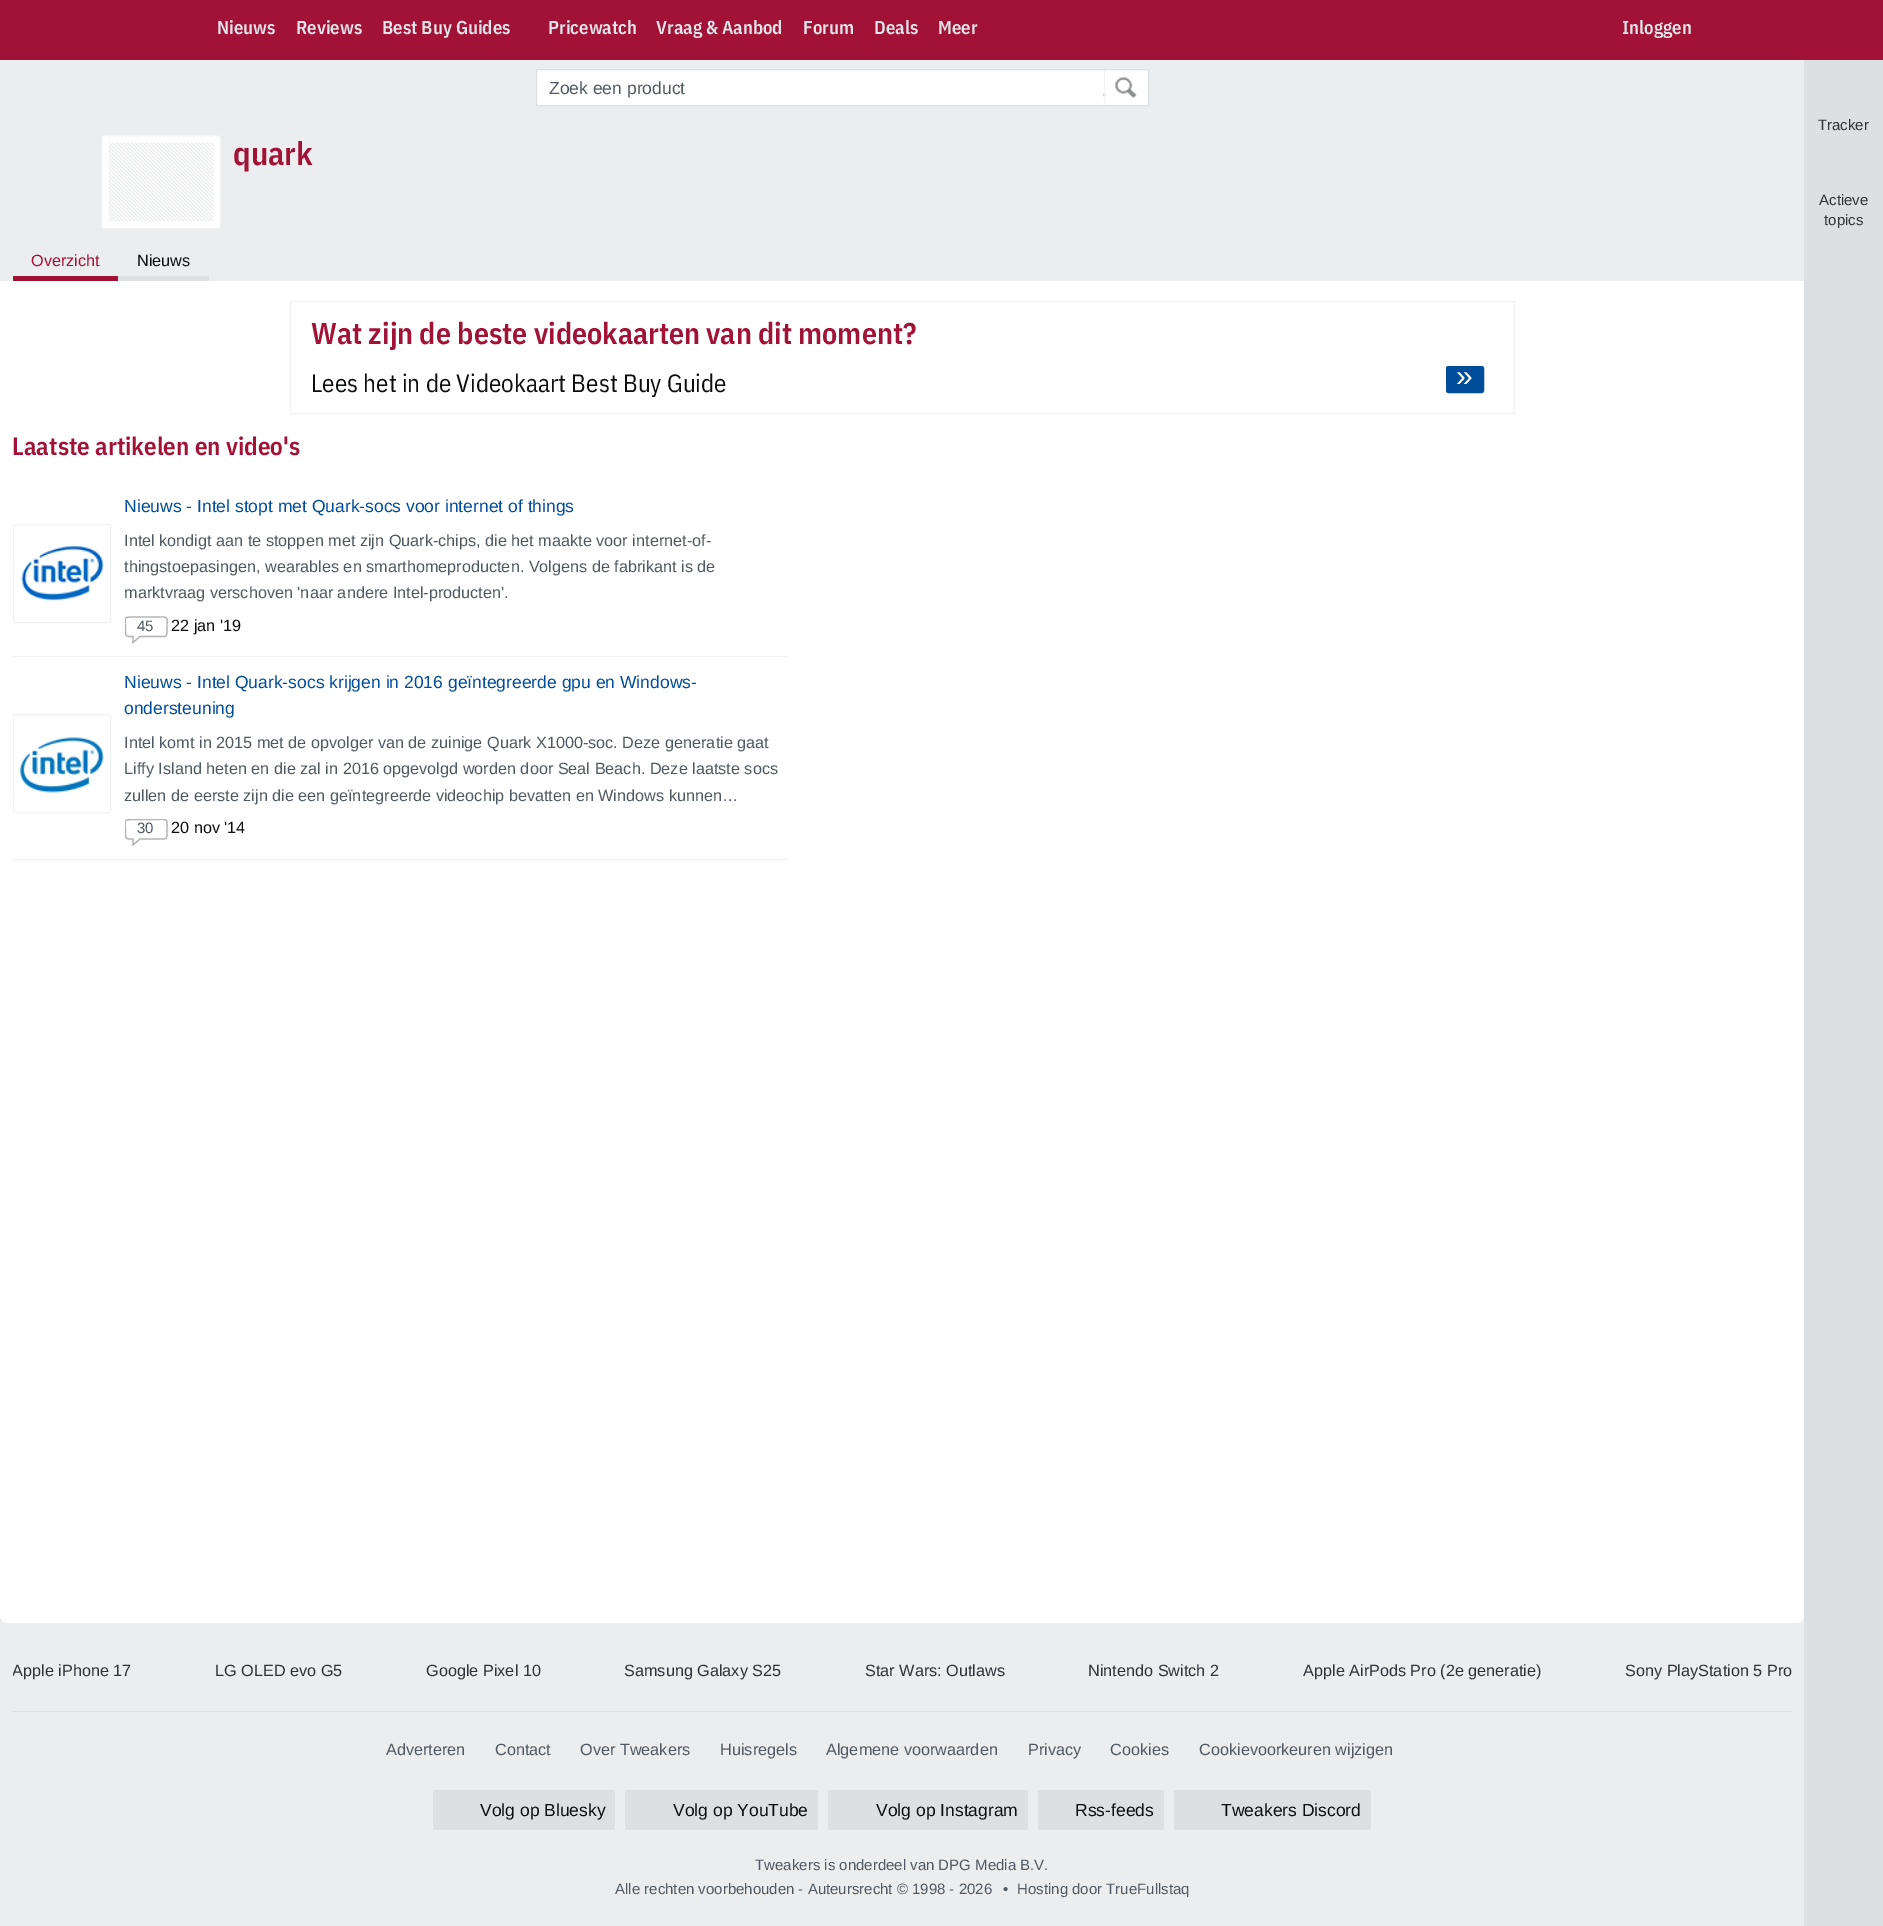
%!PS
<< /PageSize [1883 1926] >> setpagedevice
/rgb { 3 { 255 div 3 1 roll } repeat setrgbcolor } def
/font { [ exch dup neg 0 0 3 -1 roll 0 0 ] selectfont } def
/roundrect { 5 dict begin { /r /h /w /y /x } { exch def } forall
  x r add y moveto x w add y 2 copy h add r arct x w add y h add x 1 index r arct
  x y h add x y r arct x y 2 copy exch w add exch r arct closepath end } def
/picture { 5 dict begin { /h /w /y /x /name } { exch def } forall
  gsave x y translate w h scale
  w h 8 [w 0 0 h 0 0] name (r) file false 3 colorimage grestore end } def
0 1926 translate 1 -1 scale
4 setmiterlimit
255 255 255 rgb
0 0 1883 1926 rectfill
235 237 239 rgb
0 60 1804 221 rectfill
161 18 54 rgb
0 0 1883 60 rectfill
255 255 255 rgb
536.5 69.5 612 36 0.5 roundrect gsave fill grestore
221 224 227 rgb
stroke
(img/1.rgb) 1103 77 34 21 picture
241 242 244 rgb
1104 70 1 35 rectfill
255 255 255 rgb
101.5 135.5 119 93 2 roundrect gsave fill grestore
241 242 244 rgb
stroke
(img/2.rgb) 108 142 106 80 picture
[
  [13 276 105 5 161 18 54]
  [118 276 91 5 221 224 227]
  [1804 60 79 1866 221 224 227]
] { aload pop rgb rectfill } forall
241 242 244 rgb
290.5 301.5 1224 112 rectstroke
0 77 153 rgb
1446.5 366.5 37 26 2 roundrect gsave fill grestore
stroke
241 242 244 rgb
13.5 524.5 97 98 2 roundrect stroke
(img/3.rgb) 21 546 83 55 picture
13 656 775 1 rectfill
gsave
125 616 43 28 rectclip
179 179 179 rgb
1.2 setlinewidth
164.5 636.5 moveto 140 636.5 lineto 133 642.5 lineto 133 636.5 lineto 125.5 636.5 125.5 637 125.5 629 curveto 125.5 617.5 122.5 617 134 617 curveto 152.5 617 lineto 170 617 167 614.5 167 631.5 curveto 167 633.5 167 636.5 164.5 636.5 curveto closepath stroke
grestore
13.5 714.5 97 98 2 roundrect stroke
(img/4.rgb) 20 737 84 56 picture
13 859 775 1 rectfill
gsave
125 819 43 27 rectclip
179 179 179 rgb
1.2 setlinewidth
164.5 839 moveto 140 839 lineto 133 845 lineto 133 839 lineto 125.5 839 125.5 839.5 125.5 831.5 curveto 125.5 820 122.5 819.5 134 819.5 curveto 152.5 819.5 lineto 170 819.5 167 817 167 834 curveto 167 836 167 839 164.5 839 curveto closepath stroke
grestore
235 237 239 rgb
0 1615 1804 311 rectfill
255 255 255 rgb
0 1615 moveto 1804 1615 lineto 1804 1619.5 1800.5 1623 1796 1623 curveto 8 1623 lineto 3.5 1623 0 1619.5 0 1615 curveto closepath fill
221 224 227 rgb
13 1711 1780 1 rectfill
433 1790 182 40 2.5 roundrect fill
625 1790 193 40 2.5 roundrect fill
828 1790 200 40 2.5 roundrect fill
1038 1790 126 40 2.5 roundrect fill
1174 1790 197 40 2.5 roundrect fill
/IBMPlexSansCondensed-SemiBold 18.75 font
227 229 232 rgb
[
  [(Nieuws) 217 34]
  [(Reviews) 296 34]
  [(Best Buy Guides) 382 34]
  [(Pricewatch) 548 34]
  [(Vraag & Aanbod) 656 34]
  [(Forum) 803 34]
  [(Deals) 874 34]
  [(Meer) 938 34]
  [(Inloggen) 1622 34]
] { aload pop moveto show } forall
/LiberationSans-Regular 17.5 font
80 89 98 rgb
549 94 moveto (Zoek een product) show
/IBMPlexSansCondensed-SemiBold 32.5 font
161 18 54 rgb
233 165 moveto (quark) show
/LiberationSans-Regular 16.25 font
31 266 moveto (Overzicht) show
12 13 15 rgb
137 266 moveto (Nieuws) show
/LiberationSans-Regular 15 font
46 51 56 rgb
[
  [(Tracker) 1818 130]
  [(Actieve) 1819 205]
  [(topics) 1824 225]
] { aload pop moveto show } forall
/IBMPlexSansCondensed-SemiBold 30 font
161 18 54 rgb
311 344 moveto (Wat zijn de beste videokaarten van dit moment?) show
/IBMPlexSansCondensed-Regular 25 font
12 13 15 rgb
311 392 moveto (Lees het in de Videokaart Best Buy Guide) show
/LiberationSans-Regular 30 font
255 255 255 rgb
1456 386 moveto (») show
/IBMPlexSansCondensed-SemiBold 25 font
161 18 54 rgb
12 455 moveto (Laatste artikelen en video's) show
/LiberationSans-Regular 17.5 font
0 77 153 rgb
124 512 moveto (Nieuws - Intel stopt met Quark-socs voor internet of things) show
/LiberationSans-Regular 16.25 font
80 89 98 rgb
[
  [(Intel kondigt aan te stoppen met zijn Quark-chips, die het maakte voor internet-of-) 124 546]
  [(thingstoepasingen, wearables en smarthomeproducten. Volgens de fabrikant is de) 124 572]
  [(marktvraag verschoven 'naar andere Intel-producten'.) 124 598]
] { aload pop moveto show } forall
/LiberationSans-Regular 15 font
137 631 moveto (45) show
/LiberationSans-Regular 16.25 font
12 13 15 rgb
171 631 moveto (22 jan '19) show
/LiberationSans-Regular 17.5 font
0 77 153 rgb
124 688 moveto (Nieuws - Intel Quark-socs krijgen in 2016 geïntegreerde gpu en Windows-) show
124 714 moveto (ondersteuning) show
/LiberationSans-Regular 16.25 font
80 89 98 rgb
[
  [(Intel komt in 2015 met de opvolger van de zuinige Quark X1000-soc. Deze generatie gaat) 124 748]
  [(Liffy Island heten en die zal in 2016 opgevolgd worden door Seal Beach. Deze laatste socs) 124 774]
  [(zullen de eerste zijn die een geïntegreerde videochip bevatten en Windows kunnen…) 124 801]
] { aload pop moveto show } forall
/LiberationSans-Regular 15 font
137 833 moveto (30) show
/LiberationSans-Regular 16.25 font
12 13 15 rgb
171 833 moveto (20 nov '14) show
gsave
13 1659 1780 24 rectclip
46 51 56 rgb
12 1676 moveto (Apple iPhone 17) show
grestore
46 51 56 rgb
[
  [(LG OLED evo G5) 215 1676]
  [(Google Pixel 10) 426 1676]
  [(Samsung Galaxy S25) 624 1676]
  [(Star Wars: Outlaws) 865 1676]
  [(Nintendo Switch 2) 1088 1676]
  [(Apple AirPods Pro \(2e generatie\)) 1303 1676]
  [(Sony PlayStation 5 Pro) 1625 1676]
] { aload pop moveto show } forall
80 89 98 rgb
[
  [(Adverteren) 386 1755]
  [(Contact) 495 1755]
  [(Over Tweakers) 580 1755]
  [(Huisregels) 720 1755]
  [(Algemene voorwaarden) 826 1755]
  [(Privacy) 1028 1755]
  [(Cookies) 1110 1755]
  [(Cookievoorkeuren wijzigen) 1199 1755]
] { aload pop moveto show } forall
/LiberationSans-Regular 17.5 font
12 13 15 rgb
[
  [(Volg op Bluesky) 480 1816]
  [(Volg op YouTube) 673 1816]
  [(Volg op Instagram) 876 1816]
  [(Rss-feeds) 1075 1816]
  [(Tweakers Discord) 1221 1816]
] { aload pop moveto show } forall
/LiberationSans-Regular 15 font
80 89 98 rgb
[
  [(Tweakers is onderdeel van DPG Media B.V.) 755 1870]
  [(Alle rechten voorbehouden - Auteursrecht © 1998 - 2026) 615 1894]
  [(•) 1003 1894]
  [(Hosting door TrueFullstaq) 1017 1894]
] { aload pop moveto show } forall
showpage
